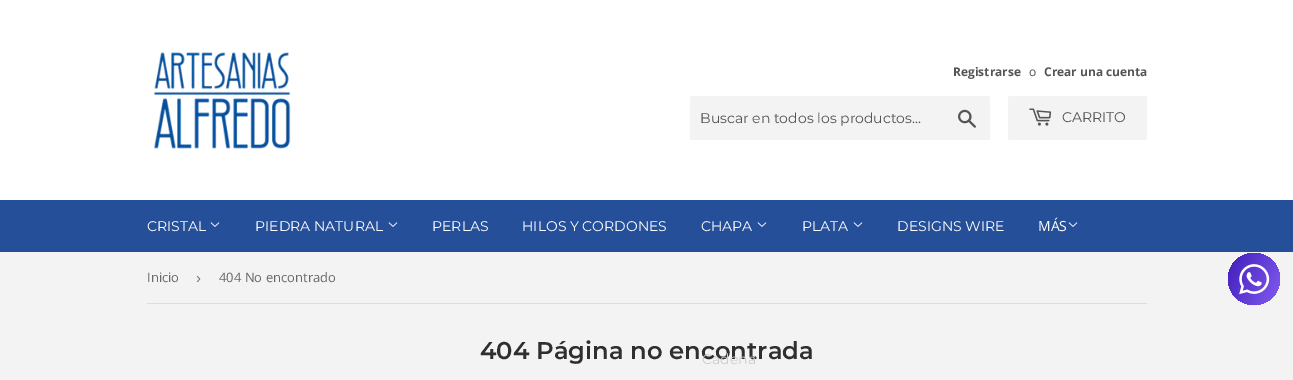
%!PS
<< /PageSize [1293 380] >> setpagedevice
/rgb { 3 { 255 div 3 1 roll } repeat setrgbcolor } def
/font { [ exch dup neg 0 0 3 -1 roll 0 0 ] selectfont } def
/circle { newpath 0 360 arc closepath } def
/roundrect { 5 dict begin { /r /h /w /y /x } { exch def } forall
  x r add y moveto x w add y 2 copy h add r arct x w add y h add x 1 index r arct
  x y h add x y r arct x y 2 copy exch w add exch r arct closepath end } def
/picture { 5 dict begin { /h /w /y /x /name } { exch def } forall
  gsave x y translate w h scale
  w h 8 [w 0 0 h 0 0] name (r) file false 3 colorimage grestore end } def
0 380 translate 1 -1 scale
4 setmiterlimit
243 243 243 rgb
0 0 1293 380 rectfill
255 255 255 rgb
0 0 1293 200 rectfill
(img/1.rgb) 153 52 138 97 picture
243 243 243 rgb
690 96 300 44 2 roundrect fill
(img/2.rgb) 958 109 18 19 picture
1008 96 139 44 2 roundrect fill
(img/3.rgb) 1029 108 23 18 picture
37 79 153 rgb
0 200 1293 52 rectfill
(img/4.rgb) 210 222 10 5 picture
(img/4.rgb) 388 222 10 5 picture
(img/4.rgb) 757 222 10 5 picture
(img/4.rgb) 853 222 10 5 picture
(img/4.rgb) 1068 222 10 5 picture
gsave 1254 279 26 circle clip newpath
<< /ShadingType 2 /ColorSpace /DeviceRGB /Coords [1223 264 1285 294] /Extend [true true] /Function << /FunctionType 2 /Domain [0 1] /C0 [0.251 0.114 0.729] /C1 [0.51 0.357 0.941] /N 1 >> >> shfill grestore
(img/5.rgb) 1239 264 31 31 picture
222 222 222 rgb
147 303 1000 1 rectfill
/OpenSans-Bold 12 font
84 84 84 rgb
953 76 moveto (Registrarse) show
/OpenSans-Regular 12 font
1029 76 moveto (o) show
/OpenSans-Bold 12 font
1044 76 moveto (Crear una cuenta) show
/Montserrat-Regular 14 font
700 123 moveto (Buscar en todos los productos...) show
1062 122 moveto (CARRITO) show
255 255 255 rgb
[
  [(CRISTAL) 147 231]
  [(PIEDRA NATURAL) 255 231]
  [(PERLAS) 432 231]
  [(HILOS Y CORDONES) 522 231]
  [(CHAPA) 701 231]
  [(PLATA) 802 231]
  [(DESIGNS WIRE) 897 231]
] { aload pop moveto show } forall
/OpenSans-Regular 14 font
1038 231 moveto (MÁS) show
/OpenSans-Regular 13 font
104 104 104 rgb
147 282 moveto (Inicio) show
/LiberationSans-Regular 15 font
118 118 118 rgb
196 283 moveto (›) show
/OpenSans-Regular 13 font
104 104 104 rgb
219 282 moveto (404 No encontrado) show
/Montserrat-SemiBold 24.25 font
47 47 47 rgb
480 359 moveto (404 Página no encontrada) show
/Montserrat-Regular 14 font
204 204 204 rgb
702 364 moveto (Cadena) show
showpage
